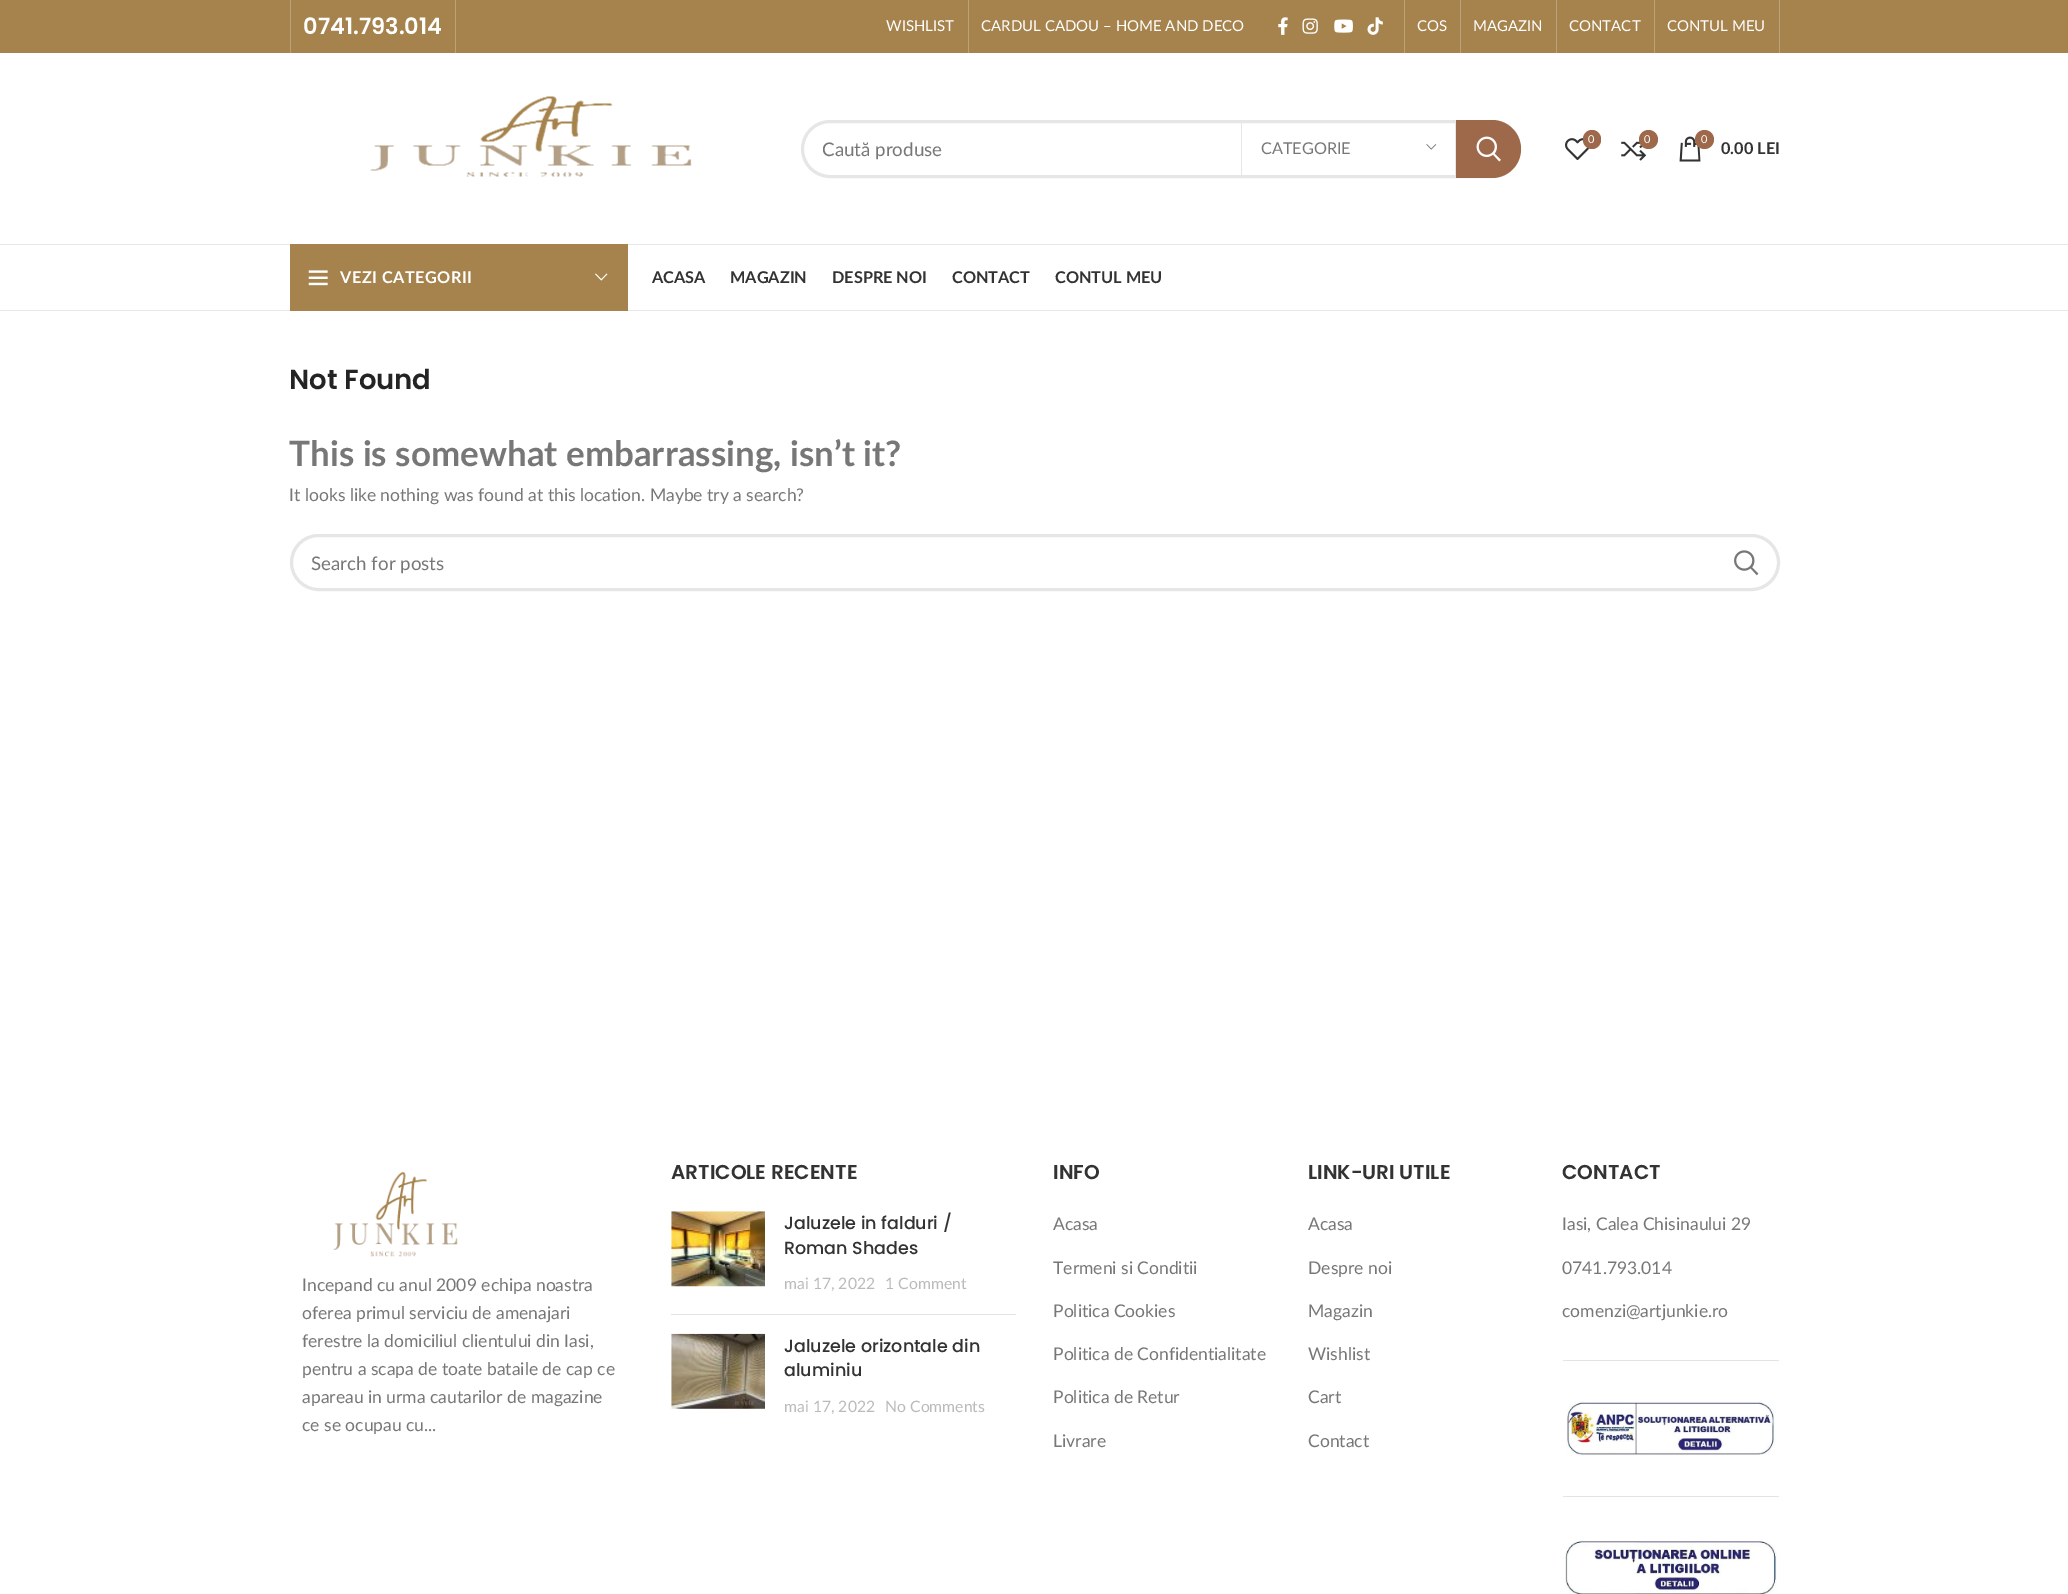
%!PS
<< /PageSize [2068 1594] >> setpagedevice
/rgb { 3 { 255 div 3 1 roll } repeat setrgbcolor } def
/font { [ exch dup neg 0 0 3 -1 roll 0 0 ] selectfont } def
/circle { newpath 0 360 arc closepath } def
/roundrect { 5 dict begin { /r /h /w /y /x } { exch def } forall
  x r add y moveto x w add y 2 copy h add r arct x w add y h add x 1 index r arct
  x y h add x y r arct x y 2 copy exch w add exch r arct closepath end } def
/picture { 5 dict begin { /h /w /y /x /name } { exch def } forall
  gsave x y translate w h scale
  w h 8 [w 0 0 h 0 0] name (r) file false 3 colorimage grestore end } def
0 1594 translate 1 -1 scale
4 setmiterlimit
255 255 255 rgb
0 0 2068 1594 rectfill
[
  [0 0 2068 53 166 131 77]
  [290 0 1 53 188 162 122]
  [455 0 1 53 188 162 122]
  [968 0 1 53 188 162 122]
] { aload pop rgb rectfill } forall
(img/1.rgb) 1278 17 10 18 picture
(img/2.rgb) 1302 18 16 16 picture
(img/3.rgb) 1334 19 19 14 picture
(img/4.rgb) 1367 17 16 18 picture
[
  [1404 0 1 53 188 162 122]
  [1460 0 1 53 188 162 122]
  [1556 0 1 53 188 162 122]
  [1654 0 1 53 188 162 122]
  [1779 0 1 53 188 162 122]
  [0 244 2068 1 232 232 232]
] { aload pop rgb rectfill } forall
(img/5.rgb) 370 96 322 81 picture
230 230 230 rgb
3 setlinewidth
802.5 121.5 717 55 27.5 roundrect stroke
1455 123 1 52 rectfill
1241 123 1 52 rectfill
(img/6.rgb) 1426 144 11 6 picture
158 105 74 rgb
1456 120 moveto 1492 120 lineto 1508 120 1521 133 1521 149 curveto 1521 165 1508 178 1492 178 curveto 1456 178 lineto closepath fill
(img/7.rgb) 1476 136 25 26 picture
(img/8.rgb) 1565 138 25 22 picture
1583 130 18 19 9 roundrect fill
(img/9.rgb) 1621 138 26 23 picture
1648.5 139.5 9.5 circle fill
(img/10.rgb) 1679 136 22 26 picture
1704.5 139.5 9.5 circle fill
232 232 232 rgb
0 310 2068 1 rectfill
166 131 77 rgb
290 244 338 67 rectfill
(img/11.rgb) 308 270 20 16 picture
(img/12.rgb) 595 273 13 8 picture
230 230 230 rgb
291.5 535.5 1487 54 27 roundrect stroke
(img/13.rgb) 1734 550 25 26 picture
(img/14.rgb) 333 1171 125 86 picture
228 228 228 rgb
671 1314 345 1 rectfill
(img/15.rgb) 671 1211 94 76 picture
(img/16.rgb) 671 1333 94 76 picture
1563 1360 216 1 rectfill
1563 1496 216 1 rectfill
(img/17.rgb) 1566 1401 210 56 picture
(img/18.rgb) 1565 1541 212 53 picture
/Poppins-SemiBold 22.5 font
255 255 255 rgb
303 34 moveto (0741.793.014) show
/Lato-Regular 15 font
[
  [(WISHLIST) 886 31]
  [(CARDUL CADOU – HOME AND DECO) 981 31]
  [(COS) 1417 31]
  [(MAGAZIN) 1473 31]
  [(CONTACT) 1569 31]
  [(CONTUL MEU) 1667 31]
] { aload pop moveto show } forall
gsave
823 138 408 22 rectclip
/Lato-Regular 18.75 font
119 119 119 rgb
822 156 moveto (Caută produse) show
grestore
/Lato-Regular 16.25 font
119 119 119 rgb
1261 154 moveto (CATEGORIE) show
/Lato-Regular 11 font
255 255 255 rgb
[
  [(0) 1588 143]
  [(0) 1644 143]
  [(0) 1701 143]
] { aload pop moveto show } forall
/Lato-Bold 16.25 font
51 51 51 rgb
1721 154 moveto (0.00 LEI) show
255 255 255 rgb
340 283 moveto 0.5 0 (VEZI CATEGORII) ashow
51 51 51 rgb
[
  [(ACASA) 652 283]
  [(MAGAZIN) 730 283]
  [(DESPRE NOI) 832 283]
  [(CONTACT) 952 283]
  [(CONTUL MEU) 1055 283]
] { aload pop moveto show } forall
/Poppins-SemiBold 27.5 font
36 36 36 rgb
289 389 moveto (Not Found) show
/Lato-Bold 35 font
119 119 119 rgb
289 466 moveto (This is somewhat embarrassing, isn’t it?) show
/Lato-Regular 17.5 font
289 501 moveto (It looks like nothing was found at this location. Maybe try a search?) show
/Lato-Regular 18.75 font
311 570 moveto (Search for posts) show
/Lato-Regular 17.5 font
[
  [(Incepand cu anul 2009 echipa noastra) 302 1291]
  [(oferea primul serviciu de amenajari) 302 1319]
  [(ferestre la domiciliul clientului din Iasi,) 302 1347]
  [(pentru a scapa de toate bataile de cap ce) 302 1375]
  [(apareau in urma cautarilor de magazine) 302 1403]
  [(ce se ocupau cu...) 302 1431]
] { aload pop moveto show } forall
/Poppins-SemiBold 20 font
51 51 51 rgb
671 1179 moveto (ARTICOLE RECENTE) show
/Poppins-Medium 17.5 font
784 1229 moveto (Jaluzele in falduri /) show
784 1254 moveto (Roman Shades) show
/Lato-Regular 15.75 font
187 187 187 rgb
784 1289 moveto (mai 17, 2022) show
885 1289 moveto (1 Comment) show
/Poppins-Medium 17.5 font
51 51 51 rgb
784 1352 moveto (Jaluzele orizontale din) show
784 1376 moveto (aluminiu) show
/Lato-Regular 15.75 font
187 187 187 rgb
784 1412 moveto (mai 17, 2022) show
885 1412 moveto (No Comments) show
/Poppins-SemiBold 20 font
51 51 51 rgb
1053 1179 moveto (INFO) show
/Lato-Regular 17.5 font
119 119 119 rgb
[
  [(Acasa) 1053 1230]
  [(Termeni si Conditii) 1053 1274]
  [(Politica Cookies) 1053 1317]
  [(Politica de Confidentialitate) 1053 1360]
  [(Politica de Retur) 1053 1403]
  [(Livrare) 1053 1447]
] { aload pop moveto show } forall
/Poppins-SemiBold 20 font
51 51 51 rgb
1308 1179 moveto (LINK-URI UTILE) show
/Lato-Regular 17.5 font
119 119 119 rgb
[
  [(Acasa) 1308 1230]
  [(Despre noi) 1308 1274]
  [(Magazin) 1308 1317]
  [(Wishlist) 1308 1360]
  [(Cart) 1308 1403]
  [(Contact) 1308 1447]
] { aload pop moveto show } forall
/Poppins-SemiBold 20 font
51 51 51 rgb
1562 1179 moveto (CONTACT) show
/Lato-Regular 17.5 font
119 119 119 rgb
[
  [(Iasi, Calea Chisinaului 29) 1562 1230]
  [(0741.793.014) 1562 1274]
  [(comenzi@artjunkie.ro) 1562 1317]
] { aload pop moveto show } forall
showpage
